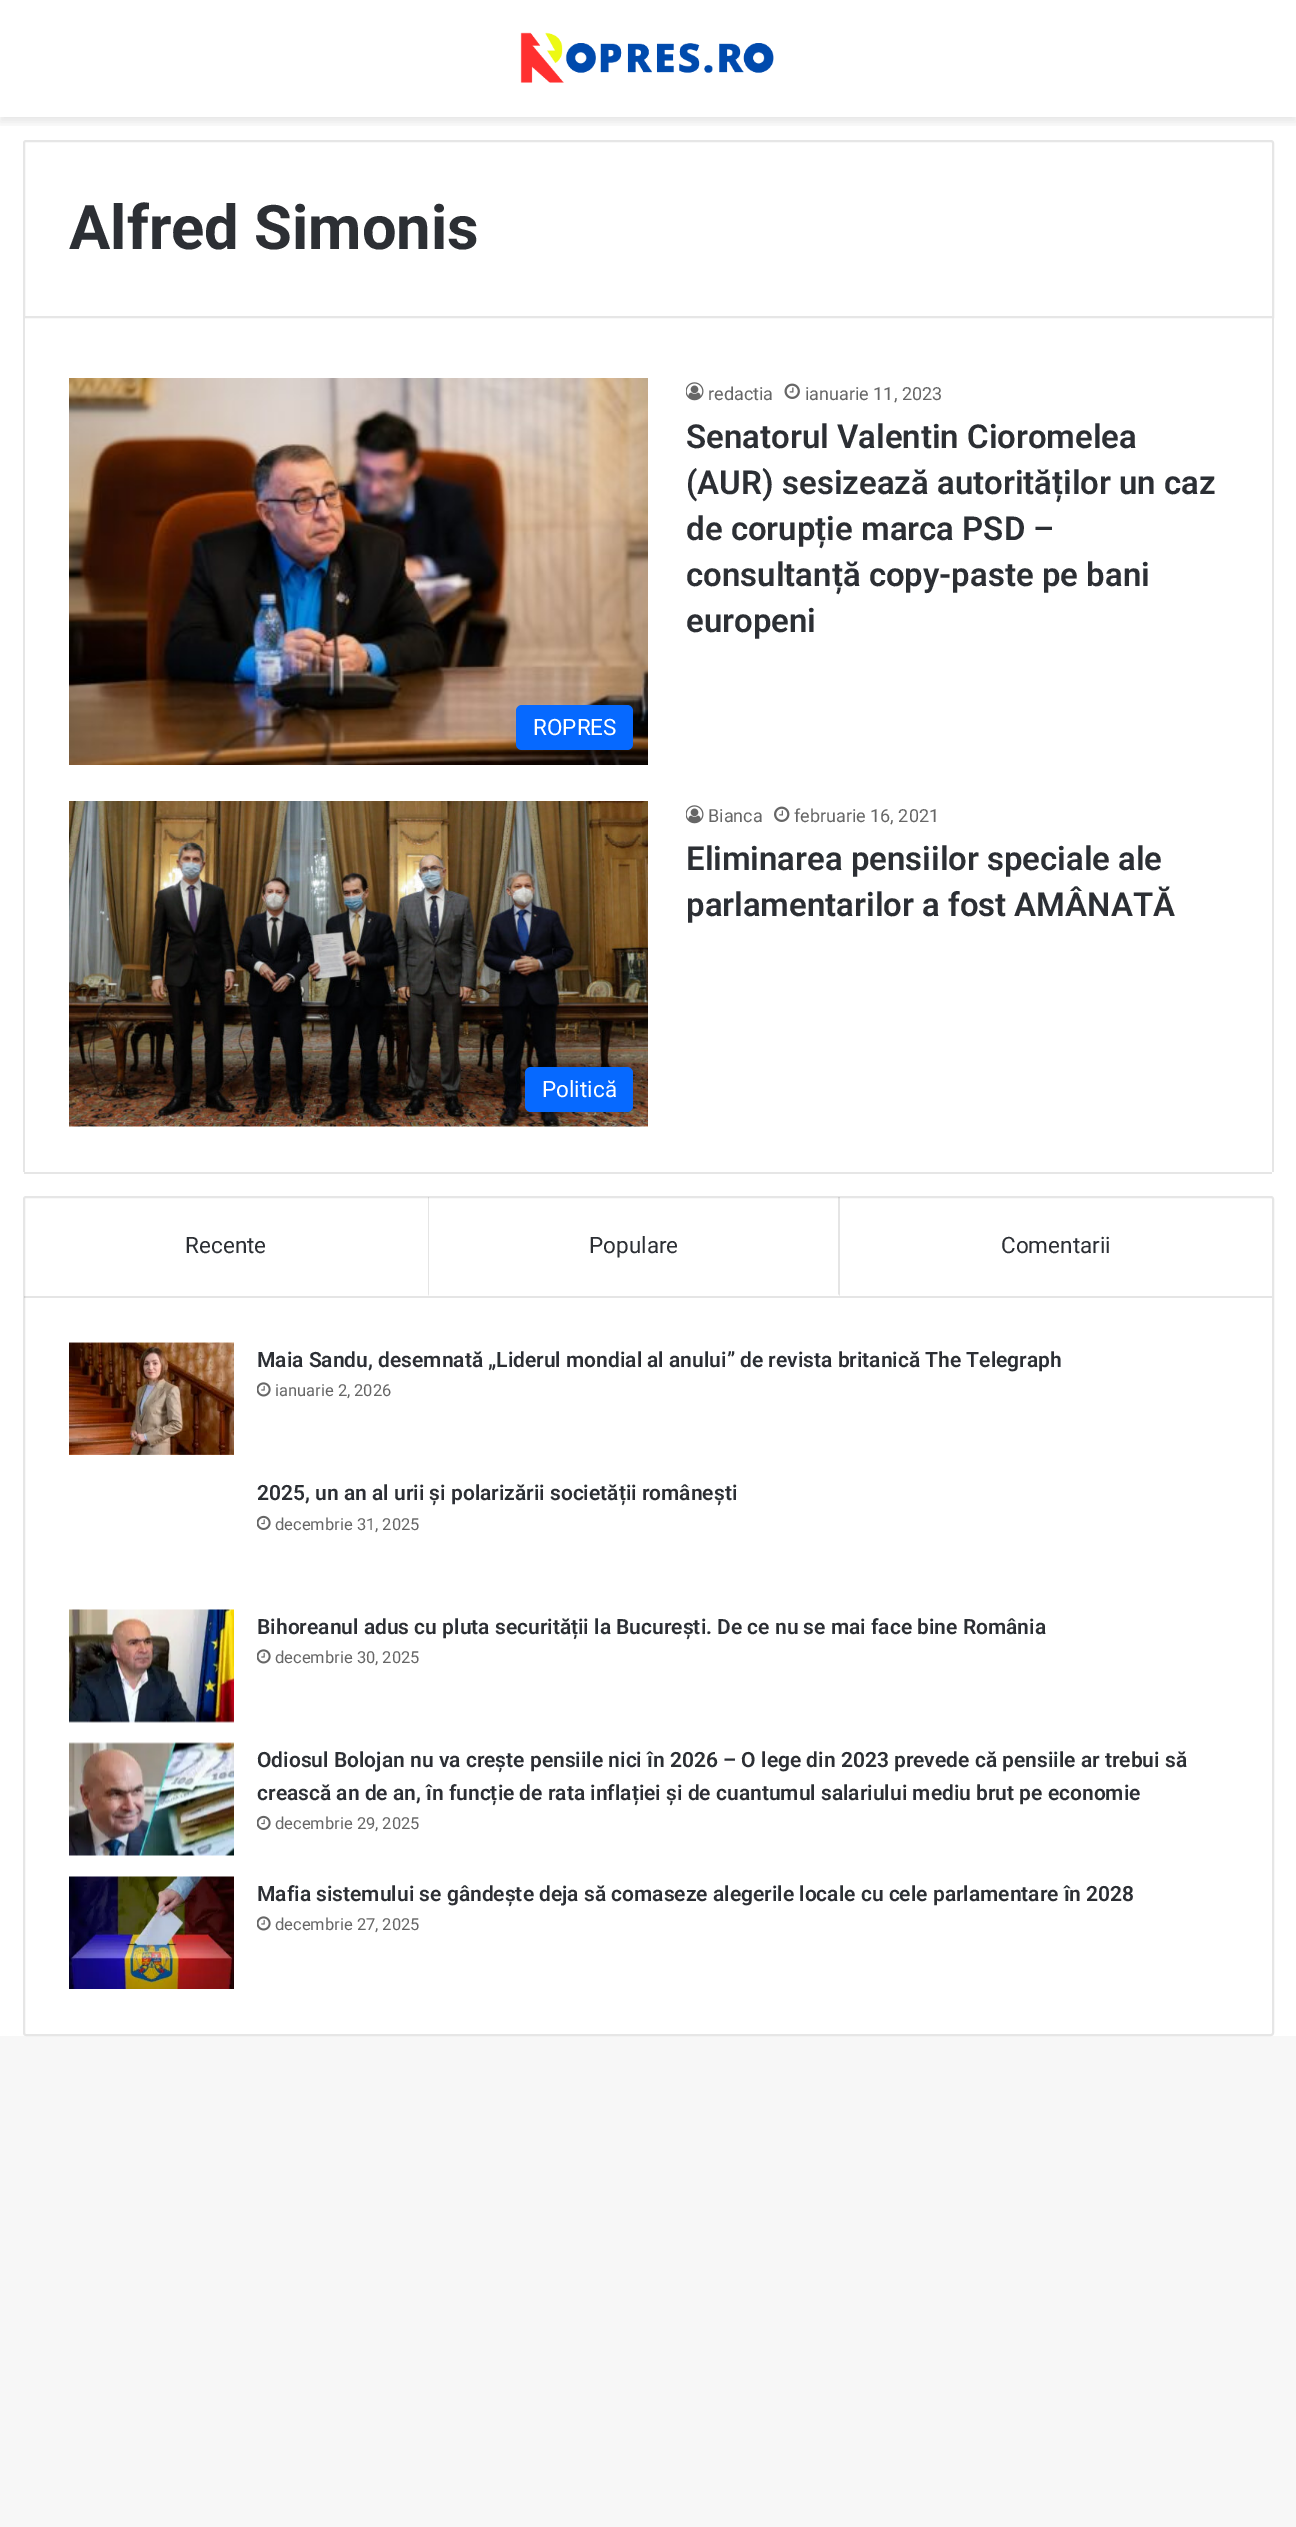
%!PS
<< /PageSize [1296 2527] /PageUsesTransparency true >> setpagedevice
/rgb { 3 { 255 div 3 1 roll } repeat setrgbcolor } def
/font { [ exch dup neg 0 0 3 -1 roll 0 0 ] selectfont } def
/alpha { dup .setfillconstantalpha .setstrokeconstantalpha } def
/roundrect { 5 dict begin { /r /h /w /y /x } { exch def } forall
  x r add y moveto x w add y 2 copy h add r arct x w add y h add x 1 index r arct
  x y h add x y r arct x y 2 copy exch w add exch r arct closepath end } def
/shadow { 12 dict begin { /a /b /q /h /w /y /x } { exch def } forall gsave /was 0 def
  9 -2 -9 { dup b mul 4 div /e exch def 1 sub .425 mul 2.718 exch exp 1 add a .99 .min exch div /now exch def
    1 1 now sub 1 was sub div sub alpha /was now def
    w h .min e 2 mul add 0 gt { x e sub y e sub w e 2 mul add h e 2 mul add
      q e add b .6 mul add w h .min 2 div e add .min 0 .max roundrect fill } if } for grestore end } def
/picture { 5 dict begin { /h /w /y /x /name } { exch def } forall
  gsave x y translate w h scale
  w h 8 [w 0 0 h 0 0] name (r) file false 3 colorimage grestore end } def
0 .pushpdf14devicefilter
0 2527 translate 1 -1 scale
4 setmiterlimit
247 247 247 rgb
0 0 1296 2527 rectfill
255 255 255 rgb
0 0 1296 2036 rectfill
gsave
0 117 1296 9 rectclip
0 0 0 rgb
0 5 1296 117 0 5 0.1 shadow
grestore
(img/1.rgb) 520 32 254 51 picture
230 230 230 rgb
2 setlinewidth
26 141 moveto 1271 141 lineto 1272 141 1273 142 1273 143 curveto 1273 317 lineto 24 317 lineto 24 143 lineto 24 142 25 141 26 141 curveto closepath stroke
[
  [1272 318 2 854 230 230 230]
  [24 1172 1248 2 230 230 230]
  [23 318 2 854 230 230 230]
] { aload pop rgb rectfill } forall
(img/2.rgb) 686 382 18 19 picture
(img/3.rgb) 784 383 16 16 picture
(img/4.rgb) 69 378 579 387 picture
6 105 255 rgb
516 705 117 45 6 roundrect fill
(img/2.rgb) 686 805 18 19 picture
(img/5.rgb) 774 806 16 16 picture
(img/6.rgb) 69 801 579 326 picture
525 1067 108 45 6 roundrect fill
230 230 230 rgb
24 1197 1249 838 2 roundrect stroke
0.1 alpha
0 0 0 rgb
24 1296 1248 2 rectfill
429 1197 moveto 429 1296 lineto 428 1294 lineto 428 1197 lineto closepath fill
840 1197 moveto 840 1296 lineto 838 1294 lineto 838 1197 lineto closepath fill
1 alpha
(img/7.rgb) 69 1342 165 113 picture
(img/8.rgb) 257 1382 14 15 picture
(img/9.rgb) 257 1515 14 15 picture
(img/10.rgb) 69 1609 165 114 picture
(img/8.rgb) 257 1649 14 15 picture
(img/11.rgb) 69 1742 165 114 picture
(img/9.rgb) 257 1815 14 15 picture
(img/12.rgb) 69 1876 165 113 picture
(img/8.rgb) 257 1916 14 15 picture
/Roboto-Bold 61.5 font
44 47 52 rgb
69 249 moveto (Alfred Simonis) show
/Roboto-Regular 18 font
102 102 102 rgb
708 400 moveto (redactia) show
805 400 moveto (ianuarie 11, 2023) show
/Roboto-SemiBold 33 font
44 47 52 rgb
[
  [(Senatorul Valentin Cioromelea) 686 448]
  [(\(AUR\) sesizează autorităților un caz) 686 494]
  [(de corupție marca PSD –) 686 540]
  [(consultanță copy-paste pe bani) 686 586]
  [(europeni) 686 632]
] { aload pop moveto show } forall
/Roboto-Regular 22.5 font
255 255 255 rgb
533 735 moveto (ROPRES) show
/Roboto-Regular 18 font
102 102 102 rgb
708 822 moveto (Bianca) show
794 822 moveto (februarie 16, 2021) show
/Roboto-SemiBold 33 font
44 47 52 rgb
686 870 moveto (Eliminarea pensiilor speciale ale) show
686 916 moveto (parlamentarilor a fost AMÂNATĂ) show
/Roboto-Regular 22.5 font
255 255 255 rgb
542 1097 moveto (Politică) show
44 47 52 rgb
[
  [(Recente) 185 1253]
  [(Populare) 589 1253]
  [(Comentarii) 1001 1253]
] { aload pop moveto show } forall
/Roboto-SemiBold 21 font
257 1367 moveto (Maia Sandu, desemnată „Liderul mondial al anului” de revista britanică The Telegraph) show
/Roboto-Regular 16.5 font
102 102 102 rgb
275 1396 moveto (ianuarie 2, 2026) show
/Roboto-SemiBold 21 font
44 47 52 rgb
257 1500 moveto (2025, un an al urii și polarizării societății românești) show
/Roboto-Regular 16.5 font
102 102 102 rgb
275 1530 moveto (decembrie 31, 2025) show
/Roboto-SemiBold 21 font
44 47 52 rgb
257 1634 moveto (Bihoreanul adus cu pluta securității la București. De ce nu se mai face bine România) show
/Roboto-Regular 16.5 font
102 102 102 rgb
275 1663 moveto (decembrie 30, 2025) show
/Roboto-SemiBold 21 font
44 47 52 rgb
257 1767 moveto (Odiosul Bolojan nu va crește pensiile nici în 2026 – O lege din 2023 prevede că pensiile ar trebui să) show
257 1800 moveto (crească an de an, în funcție de rata inflației și de cuantumul salariului mediu brut pe economie) show
/Roboto-Regular 16.5 font
102 102 102 rgb
275 1829 moveto (decembrie 29, 2025) show
/Roboto-SemiBold 21 font
44 47 52 rgb
257 1901 moveto (Mafia sistemului se gândește deja să comaseze alegerile locale cu cele parlamentare în 2028) show
/Roboto-Regular 16.5 font
102 102 102 rgb
275 1930 moveto (decembrie 27, 2025) show
.poppdf14devicefilter showpage
